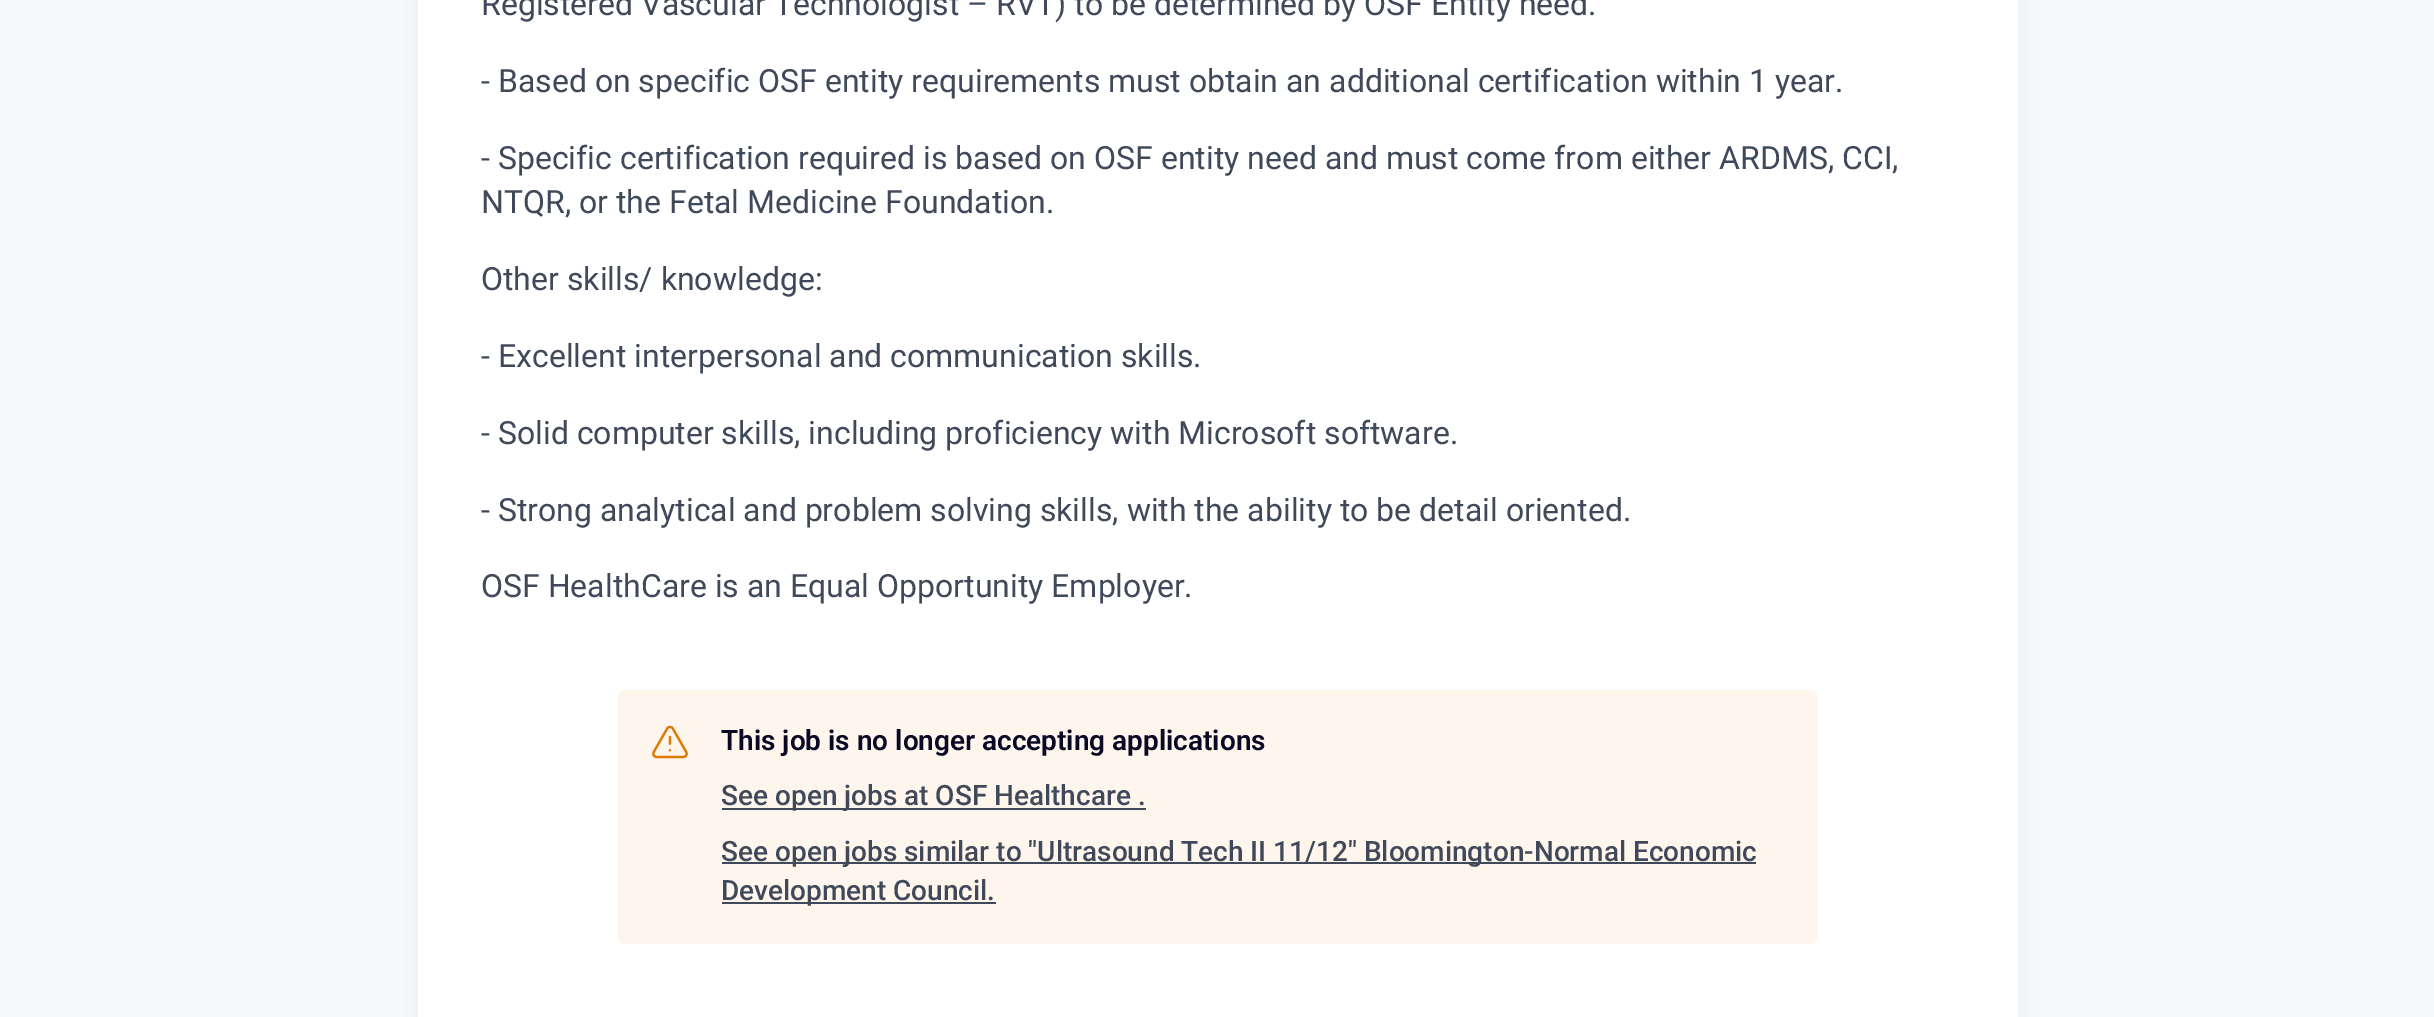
%!PS
<< /PageSize [2434 1017] /PageUsesTransparency true >> setpagedevice
/rgb { 3 { 255 div 3 1 roll } repeat setrgbcolor } def
/font { [ exch dup neg 0 0 3 -1 roll 0 0 ] selectfont } def
/alpha { dup .setfillconstantalpha .setstrokeconstantalpha } def
/roundrect { 5 dict begin { /r /h /w /y /x } { exch def } forall
  x r add y moveto x w add y 2 copy h add r arct x w add y h add x 1 index r arct
  x y h add x y r arct x y 2 copy exch w add exch r arct closepath end } def
/shadow { 12 dict begin { /a /b /q /h /w /y /x } { exch def } forall gsave /was 0 def
  9 -2 -9 { dup b mul 4 div /e exch def 1 sub .425 mul 2.718 exch exp 1 add a .99 .min exch div /now exch def
    1 1 now sub 1 was sub div sub alpha /was now def
    w h .min e 2 mul add 0 gt { x e sub y e sub w e 2 mul add h e 2 mul add
      q e add b .6 mul add w h .min 2 div e add .min 0 .max roundrect fill } if } for grestore end } def
/picture { 5 dict begin { /h /w /y /x /name } { exch def } forall
  gsave x y translate w h scale
  w h 8 [w 0 0 h 0 0] name (r) file false 3 colorimage grestore end } def
0 .pushpdf14devicefilter
0 1017 translate 1 -1 scale
4 setmiterlimit
247 250 252 rgb
0 0 2434 1017 rectfill
27 36 50 rgb
418 -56 1600 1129 8 16 0.06 shadow
255 255 255 rgb
418 0 1600 1017 rectfill
254 245 236 rgb
618 690 1200 254 8 roundrect fill
(img/1.rgb) 652 725 36 34 picture
[
  [722 808 424 2 63 73 90]
  [722 862 1034 2 63 73 90]
  [722 902 274 2 63 73 90]
] { aload pop rgb rectfill } forall
/Roboto-Regular 32 font
[
  [(Registered Vascular Technologist – RVT\) to be determined by OSF Entity need.) 481 15]
  [(- Based on specific OSF entity requirements must obtain an additional certification within 1 year.) 481 92]
  [(- Specific certification required is based on OSF entity need and must come from either ARDMS, CCI,) 481 169]
  [(NTQR, or the Fetal Medicine Foundation.) 481 213]
  [(Other skills/ knowledge:) 481 290]
  [(- Excellent interpersonal and communication skills.) 481 367]
  [(- Solid computer skills, including proficiency with Microsoft software.) 481 444]
  [(- Strong analytical and problem solving skills, with the ability to be detail oriented.) 481 521]
  [(OSF HealthCare is an Equal Opportunity Employer.) 481 597]
] { aload pop moveto show } forall
/Roboto-SemiBold 28 font
9 9 37 rgb
721 750 moveto (This job is no longer accepting applications) show
/Roboto-Medium 28 font
63 73 90 rgb
[
  [(See open jobs at OSF Healthcare .) 721 805]
  [(See open jobs similar to "Ultrasound Tech II 11/12" Bloomington-Normal Economic) 721 861]
  [(Development Council.) 721 900]
] { aload pop moveto show } forall
.poppdf14devicefilter showpage
